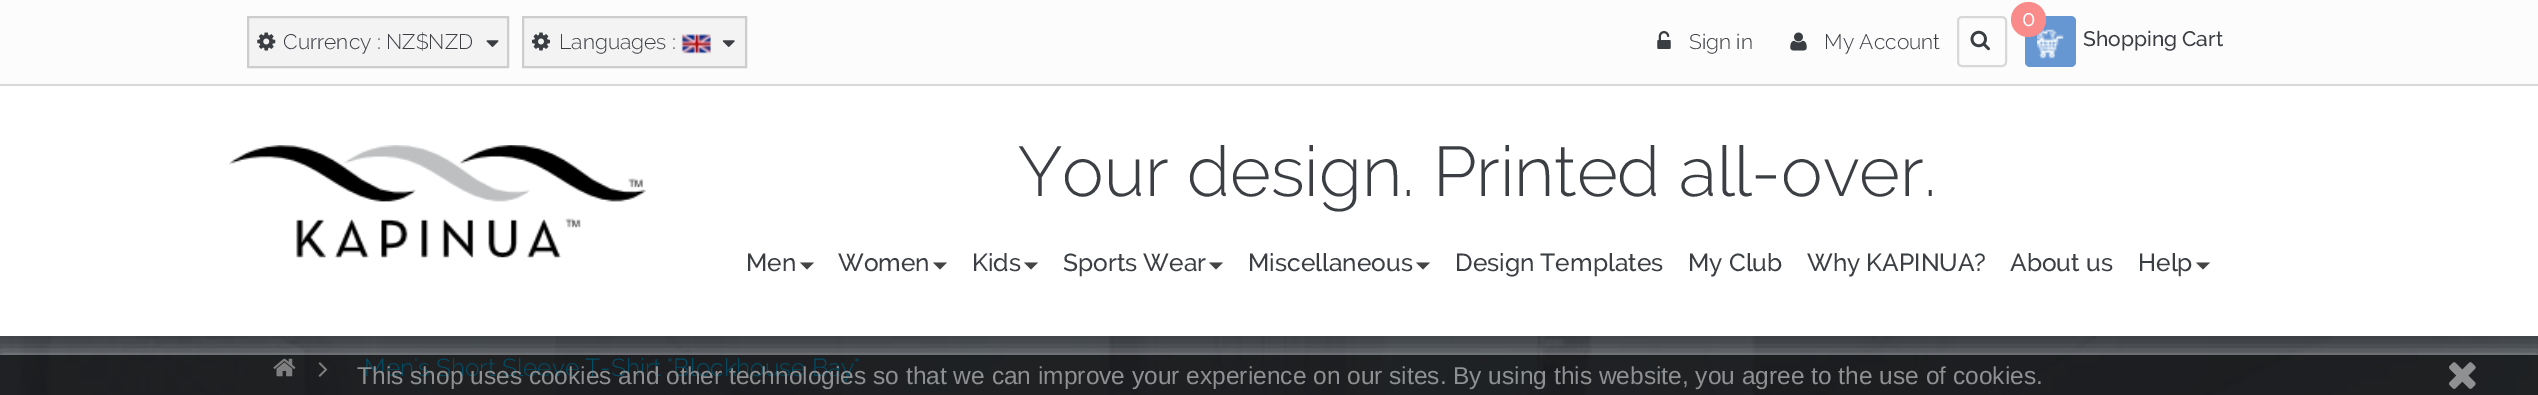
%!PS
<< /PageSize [2538 395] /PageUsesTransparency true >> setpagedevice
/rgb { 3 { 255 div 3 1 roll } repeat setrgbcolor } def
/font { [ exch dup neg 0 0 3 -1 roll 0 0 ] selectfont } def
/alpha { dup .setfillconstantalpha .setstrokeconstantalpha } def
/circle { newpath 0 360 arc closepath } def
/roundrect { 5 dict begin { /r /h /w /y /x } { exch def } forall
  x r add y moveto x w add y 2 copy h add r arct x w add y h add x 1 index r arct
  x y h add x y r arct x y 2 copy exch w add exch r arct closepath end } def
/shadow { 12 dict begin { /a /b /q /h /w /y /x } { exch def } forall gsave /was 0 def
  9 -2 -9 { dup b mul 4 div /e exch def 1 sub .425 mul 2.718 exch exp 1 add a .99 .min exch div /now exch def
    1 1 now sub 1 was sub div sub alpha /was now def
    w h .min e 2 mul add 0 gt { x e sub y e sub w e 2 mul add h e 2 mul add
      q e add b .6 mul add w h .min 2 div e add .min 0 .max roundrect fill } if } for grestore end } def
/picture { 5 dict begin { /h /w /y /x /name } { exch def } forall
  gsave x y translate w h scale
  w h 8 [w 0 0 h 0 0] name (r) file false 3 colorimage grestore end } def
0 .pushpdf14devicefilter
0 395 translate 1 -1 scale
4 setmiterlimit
255 255 255 rgb
0 0 2538 395 rectfill
252 252 252 rgb
0 0 2538 84 rectfill
216 216 216 rgb
0 84 2538 2 rectfill
243 243 243 rgb
248 17 moveto 508 17 lineto 508 67 lineto 248 67 lineto closepath gsave fill grestore
205 205 205 rgb
2 setlinewidth
stroke
(img/1.rgb) 257 32 19 19 picture
(img/2.rgb) 486 40 13 7 picture
243 243 243 rgb
523 17 moveto 746 17 lineto 746 67 lineto 523 67 lineto closepath gsave fill grestore
205 205 205 rgb
stroke
(img/3.rgb) 532 32 18 19 picture
(img/4.rgb) 681 34 30 20 picture
(img/5.rgb) 722 40 13 7 picture
(img/6.rgb) 1657 31 14 18 picture
(img/7.rgb) 1790 32 17 19 picture
216 216 216 rgb
1958 17 48 49 4 roundrect stroke
(img/8.rgb) 1970 30 20 21 picture
102 151 210 rgb
2025 16 51 51 5 roundrect fill
(img/9.rgb) 2037 29 27 30 picture
250 139 139 rgb
2028.5 19.5 17.5 circle fill
(img/10.rgb) 229 145 417 113 picture
68 68 68 rgb
800 262.5 moveto 814 262.5 lineto 807 269.5 lineto closepath fill
933 262.5 moveto 947 262.5 lineto 940 269.5 lineto closepath fill
1024 262.5 moveto 1038 262.5 lineto 1031 269.5 lineto closepath fill
1209 262.5 moveto 1223 262.5 lineto 1216 269.5 lineto closepath fill
1416 262.5 moveto 1430 262.5 lineto 1423 269.5 lineto closepath fill
2196 262.5 moveto 2210 262.5 lineto 2203 269.5 lineto closepath fill
(img/11.rgb) 0 336 2538 59 picture
(img/12.rgb) 273 358 23 19 picture
(img/13.rgb) 318 362 10 15 picture
gsave
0 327 moveto 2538 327 lineto 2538 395 lineto 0 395 lineto closepath 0 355 moveto 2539 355 lineto 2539 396 lineto 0 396 lineto closepath eoclip newpath
255 255 255 rgb
0 355 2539 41 0 9 0.5 shadow
grestore
/Raleway-Light 21 font
59 62 67 rgb
[
  [(Currency : NZ$NZD) 283 49]
  [(Languages :) 559 49]
  [(Sign in) 1689 49]
  [(My Account) 1824 49]
] { aload pop moveto show } forall
/Raleway-Bold 21 font
255 255 255 rgb
2022 26 moveto (0) show
/Raleway-Medium 21 font
59 62 67 rgb
2083 46 moveto (Shopping Cart) show
/Raleway-Light 70 font
1018 196 moveto (Your design. Printed all-over.) show
/Raleway-Medium 24.5 font
[
  [(Men) 746 271]
  [(Women) 838 271]
  [(Kids) 972 271]
  [(Sports Wear) 1063 271]
  [(Miscellaneous) 1248 271]
  [(Design Templates) 1455 271]
  [(My Club) 1688 271]
  [(Why KAPINUA?) 1807 271]
  [(About us) 2010 271]
  [(Help) 2138 271]
] { aload pop moveto show } forall
/Raleway-Light 24.5 font
0 155 203 rgb
364 376 moveto (Men's Short Sleeve T-Shirt "Blockhouse Bay") show
0.5 alpha
0 0 0 rgb
0 355 2538 40 rectfill
/LiberationSans-Regular 24.5 font
1 alpha
142 144 146 rgb
357 384 moveto (This shop uses cookies and other technologies so that we can improve your experience on our sites.) show
1453 384 moveto (By using this website, you agree to the use of cookies.) show
(img/14.rgb) 2449 362 27 27 picture
.poppdf14devicefilter showpage
